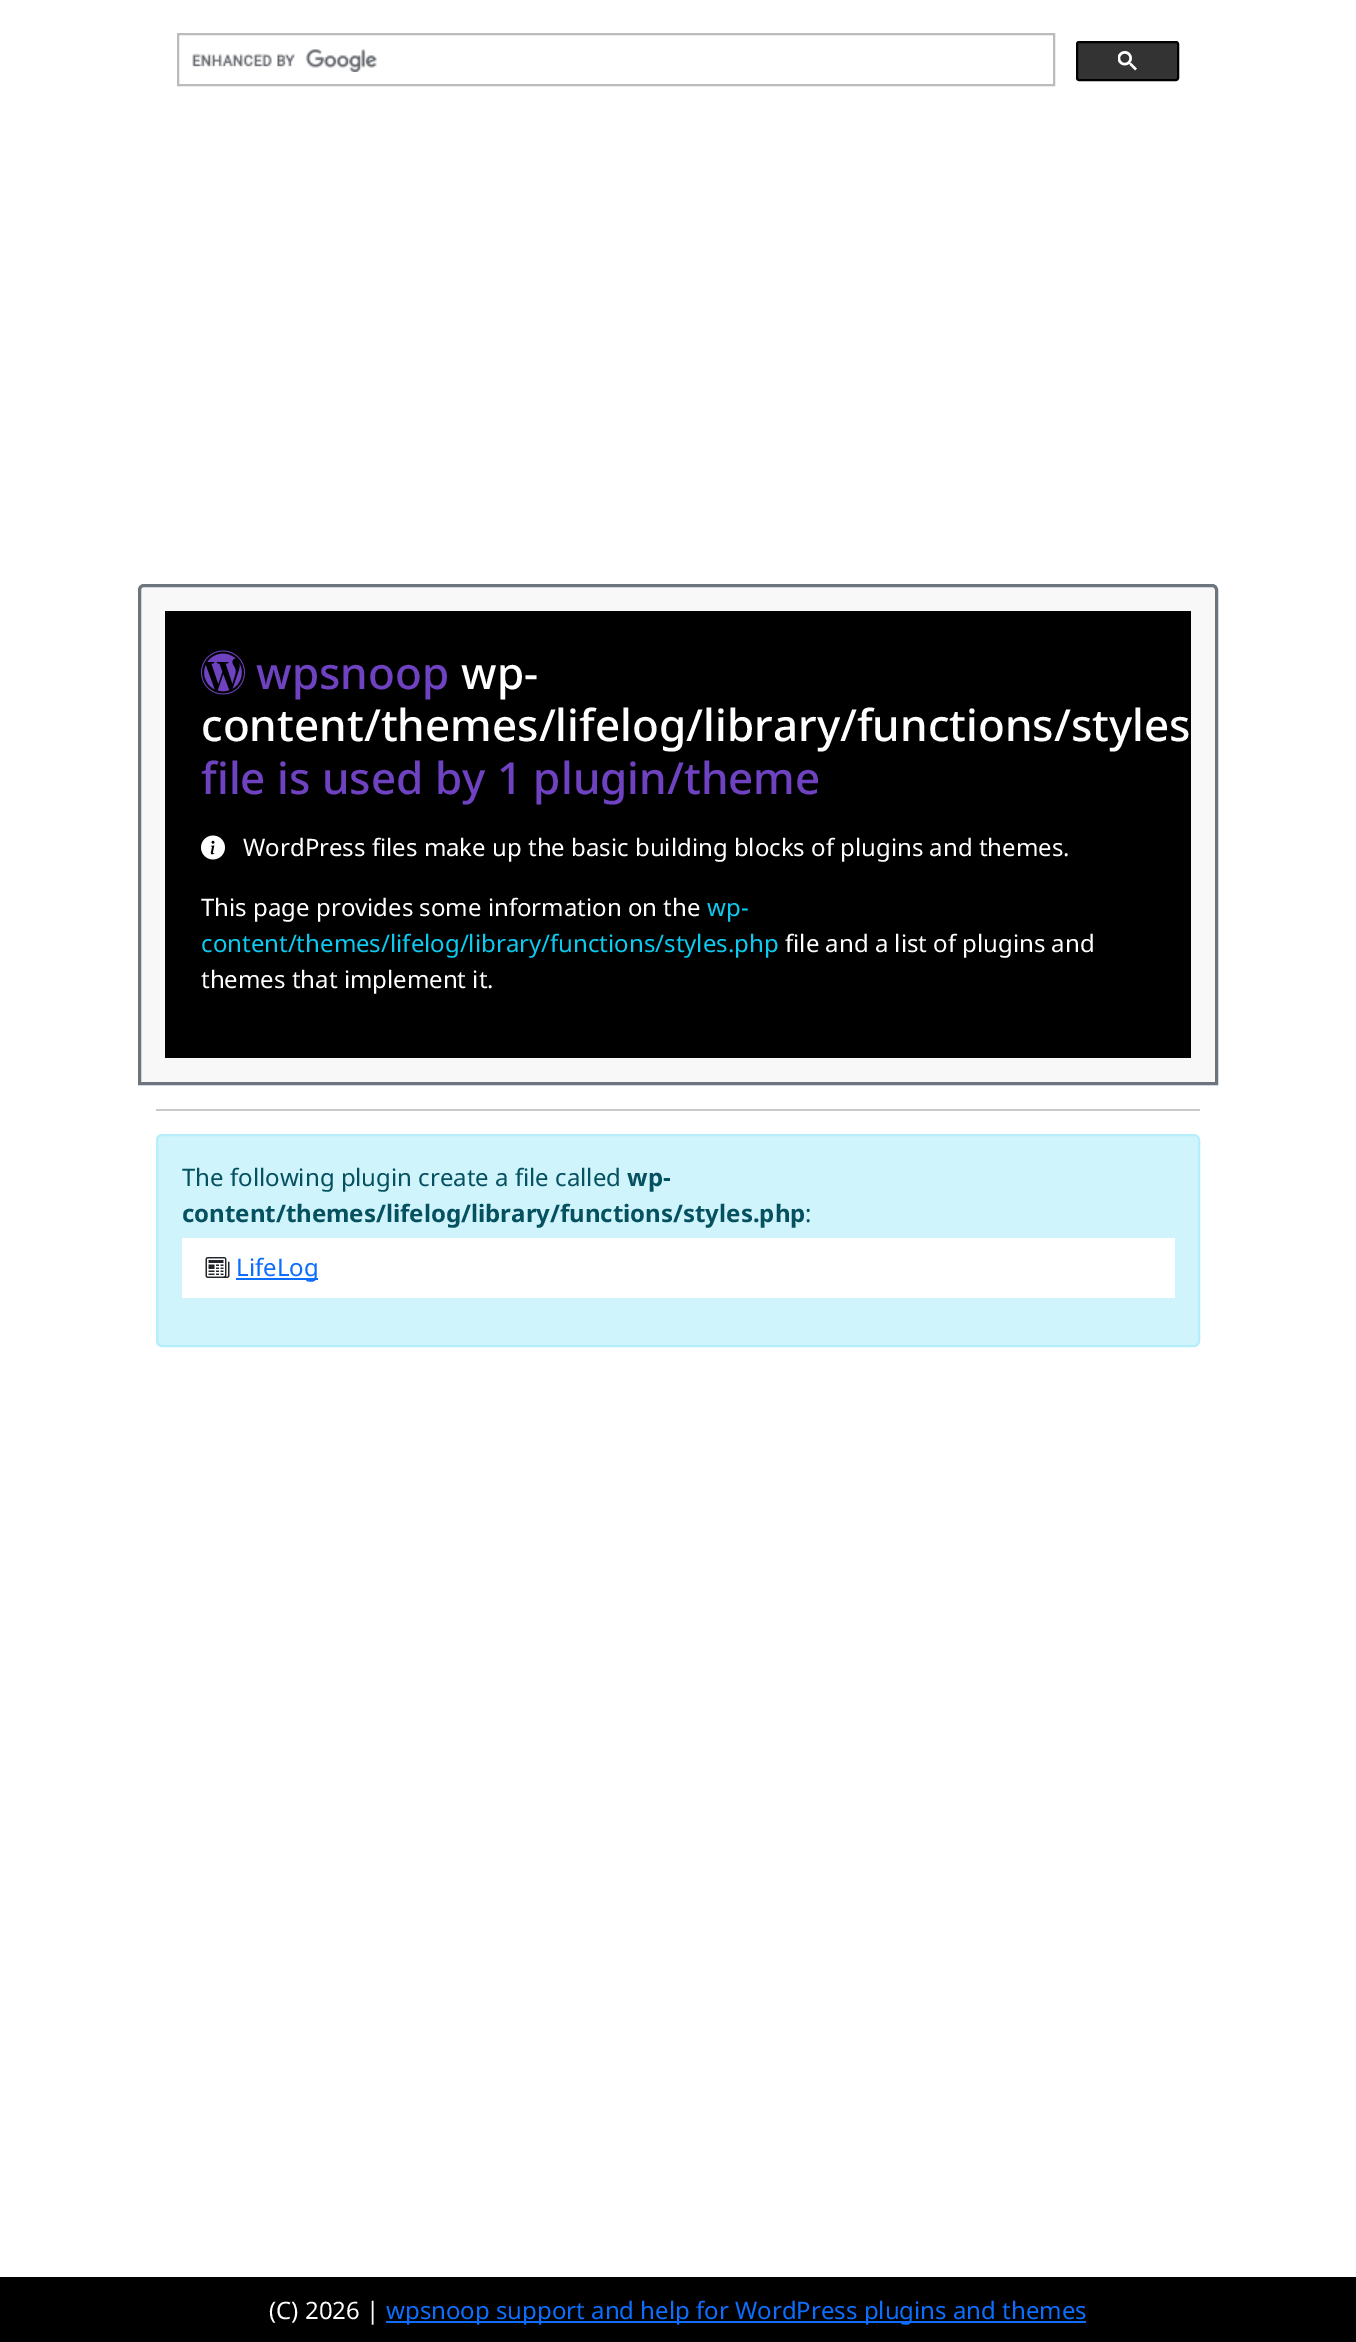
%!PS
<< /PageSize [1356 2342] >> setpagedevice
/rgb { 3 { 255 div 3 1 roll } repeat setrgbcolor } def
/font { [ exch dup neg 0 0 3 -1 roll 0 0 ] selectfont } def
/roundrect { 5 dict begin { /r /h /w /y /x } { exch def } forall
  x r add y moveto x w add y 2 copy h add r arct x w add y h add x 1 index r arct
  x y h add x y r arct x y 2 copy exch w add exch r arct closepath end } def
/picture { 5 dict begin { /h /w /y /x /name } { exch def } forall
  gsave x y translate w h scale
  w h 8 [w 0 0 h 0 0] name (r) file false 3 colorimage grestore end } def
0 2342 translate 1 -1 scale
4 setmiterlimit
255 255 255 rgb
0 0 1356 2342 rectfill
187 187 187 rgb
2 setlinewidth
178 34 876 51 rectstroke
(img/1.rgb) 192 49 185 23 picture
51 51 51 rgb
1077 42 101 38 2 roundrect gsave fill grestore
0 0 0 rgb
stroke
(img/2.rgb) 1118 51 19 20 picture
gsave
144 584 moveto 1212 584 lineto 1215.5 584 1218 586.5 1218 590 curveto 1218 1085 lineto 138 1085 lineto 138 590 lineto 138 586.5 140.5 584 144 584 curveto closepath clip newpath
gsave 138 587 moveto 1218 587 lineto 1218 1082 lineto 138 1082 lineto closepath clip newpath
<< /ShadingType 2 /ColorSpace /DeviceRGB /Coords [678 586 678 1082] /Extend [true true] /Function << /FunctionType 2 /Domain [0 1] /C0 [0.976 0.976 0.976] /C1 [0.973 0.973 0.976] /N 1 >> >> shfill grestore
grestore
108 117 125 rgb
3 setlinewidth
144 585.5 moveto 1212 585.5 lineto 1214.5 585.5 1216.5 587.5 1216.5 590 curveto 1216.5 1083.5 lineto 139.5 1083.5 lineto 139.5 590 lineto 139.5 587.5 141.5 585.5 144 585.5 curveto closepath stroke
0 0 0 rgb
165 611 1026 447 rectfill
(img/3.rgb) 201 650 44 45 picture
(img/4.rgb) 201 835 24 25 picture
200 201 202 rgb
156 1109 1044 2 rectfill
207 244 252 rgb
157 1135 1042 211 5 roundrect gsave fill grestore
182 239 251 rgb
2 setlinewidth
stroke
255 255 255 rgb
182 1238 993 60 rectfill
(img/5.rgb) 205 1257 25 21 picture
[
  [236 1278 82 2 13 110 253]
  [0 2277 1356 65 0 0 0]
  [386 2321 700 2 13 110 253]
] { aload pop rgb rectfill } forall
/NotoSans-Medium 44 font
111 66 193 rgb
256 689 moveto (wpsnoop) show
255 255 255 rgb
461 689 moveto (wp-) show
201 741 moveto (content/themes/lifelog/library/functions/styles) show
111 66 193 rgb
201 794 moveto (file is used by 1 plugin/theme) show
/NotoSans-Regular 24 font
255 255 255 rgb
243 856 moveto (WordPress files make up the basic building blocks of plugins and themes.) show
201 916 moveto (This page provides some information on the) show
13 202 240 rgb
707 916 moveto (wp-) show
201 952 moveto (content/themes/lifelog/library/functions/styles.php) show
255 255 255 rgb
785 952 moveto (file and a list of plugins and) show
201 988 moveto (themes that implement it.) show
5 81 96 rgb
182 1186 moveto (The following plugin create a file called) show
/NotoSans-Bold 24 font
627 1186 moveto (wp-) show
182 1222 moveto (content/themes/lifelog/library/functions/styles.php) show
/NotoSans-Regular 24 font
805 1222 moveto (:) show
13 110 253 rgb
236 1276 moveto (LifeLog) show
255 255 255 rgb
269 2319 moveto (\(C\) 2026 |) show
13 110 253 rgb
386 2319 moveto (wpsnoop support and help for WordPress plugins and themes) show
showpage
